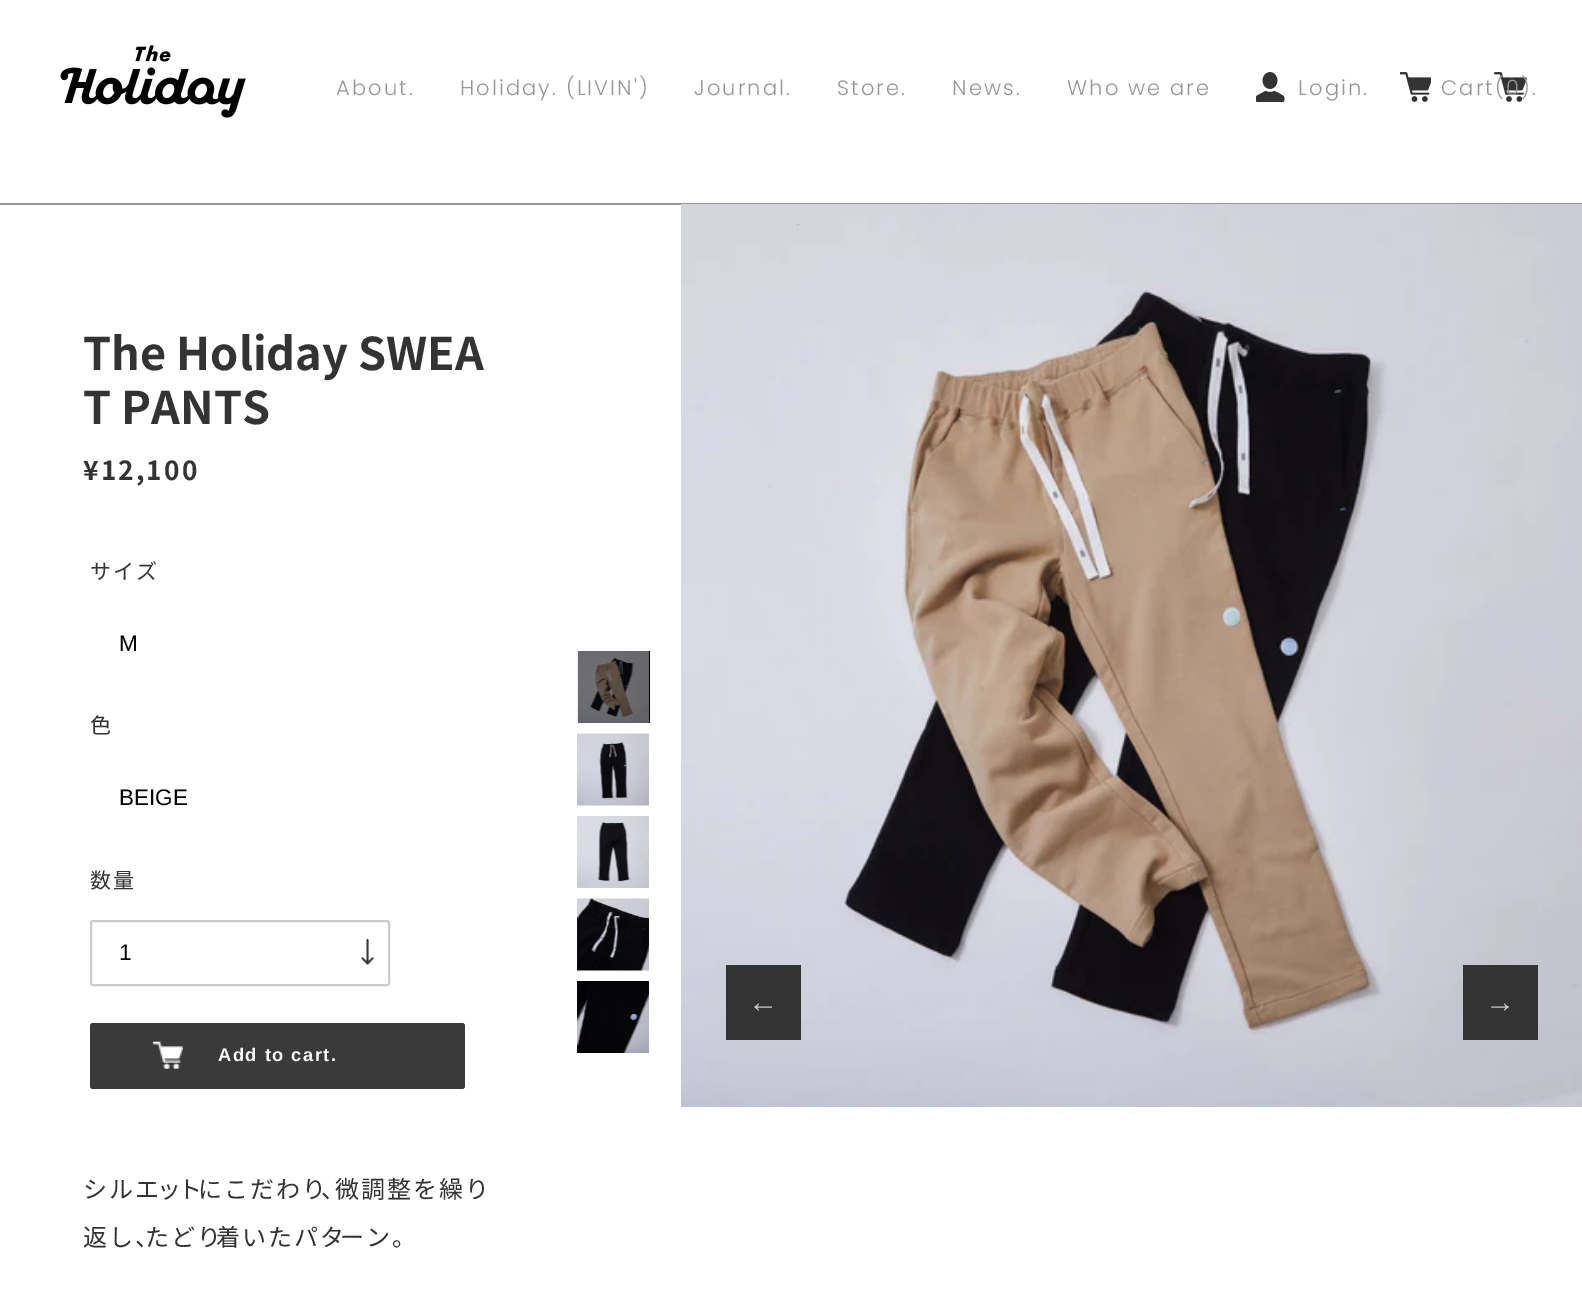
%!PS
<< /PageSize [1582 1297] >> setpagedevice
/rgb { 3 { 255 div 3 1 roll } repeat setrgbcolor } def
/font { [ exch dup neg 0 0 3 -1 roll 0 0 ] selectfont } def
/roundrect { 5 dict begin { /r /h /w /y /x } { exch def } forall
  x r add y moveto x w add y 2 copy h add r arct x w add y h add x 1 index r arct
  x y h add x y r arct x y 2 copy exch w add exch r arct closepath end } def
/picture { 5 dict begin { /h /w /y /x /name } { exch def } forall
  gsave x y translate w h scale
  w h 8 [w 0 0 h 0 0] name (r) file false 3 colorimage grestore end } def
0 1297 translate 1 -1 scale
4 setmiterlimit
255 255 255 rgb
0 0 1582 1297 rectfill
(img/1.rgb) 60 45 186 73 picture
(img/2.rgb) 1256 72 29 30 picture
(img/3.rgb) 1400 72 127 30 picture
151 151 151 rgb
0 203 1582 2 rectfill
(img/4.rgb) 361 939 13 26 picture
204 204 204 rgb
2 setlinewidth
91 921 298 64 2 roundrect stroke
58 58 58 rgb
90 1023 375 66 3 roundrect fill
(img/5.rgb) 153 1041 30 28 picture
0 0 0 rgb
578 651 72 72 rectfill
(img/6.rgb) 577 651 72 72 picture
(img/7.rgb) 577 733 72 73 picture
(img/8.rgb) 577 816 72 72 picture
(img/9.rgb) 577 898 72 73 picture
(img/10.rgb) 577 981 72 72 picture
(img/11.rgb) 681 204 901 903 picture
51 51 51 rgb
726 965 75 75 rectfill
1463 965 75 75 rectfill
/Poppins-Light 21 font
151 151 151 rgb
336 95 moveto 2.1 0 (About.) ashow
460 95 moveto 2.1 0 (Holiday. \(LIVIN'\)) ashow
694 95 moveto 2.1 0 (Journal.) ashow
837 95 moveto 2.1 0 (Store.) ashow
952 95 moveto 2.1 0 (News.) ashow
1067 95 moveto 2.1 0 (Who we are) ashow
1298 95 moveto 2.1 0 (Login.) ashow
1441 95 moveto 2.1 0 (Cart\(0\).) ashow
/NotoSansJP-Bold 45 font
51 51 51 rgb
83 370 moveto (The Holiday SWEA) show
83 424 moveto (T PANTS) show
/NotoSansJP-Bold 26.25 font
83 480 moveto 2.1 0 (¥12,100) ashow
/NotoSansJP-Regular 21 font
90 579 moveto 2.1 0 (サイズ) ashow
/LiberationSans-Regular 22.5 font
0 0 0 rgb
119 651 moveto (M) show
/NotoSansJP-Regular 21 font
51 51 51 rgb
90 733 moveto 2.1 0 (色) ashow
/LiberationSans-Regular 22.5 font
0 0 0 rgb
119 805 moveto (BEIGE) show
/NotoSansJP-Regular 21 font
51 51 51 rgb
90 888 moveto 2.1 0 (数量) ashow
/LiberationSans-Regular 22.5 font
0 0 0 rgb
119 960 moveto (1) show
/LiberationSans-Bold 18.25 font
255 255 255 rgb
218 1061 moveto 1.5 0 (Add to cart.) ashow
/NotoSansJP-Regular 24 font
51 51 51 rgb
83 1198 moveto 2.1 0 (シルエ) ashow
157 1198 moveto 2.1 0 (ッ) ashow
178 1198 moveto 2.1 0 (ト) ashow
198 1198 moveto 2.1 0 (にこだわり) ashow
321 1198 moveto 2.1 0 (、) ashow
335 1198 moveto 2.1 0 (微調整を繰り) ashow
83 1246 moveto 2.1 0 (返し、) ashow
145 1246 moveto 2.1 0 (たどり) ashow
216 1246 moveto 2.1 0 (着いたパタ) ashow
340 1246 moveto 2.1 0 (ーン。) ashow
/LiberationSerif-Regular 30 font
204 204 204 rgb
748 1012 moveto (←) show
1485 1012 moveto (→) show
showpage
